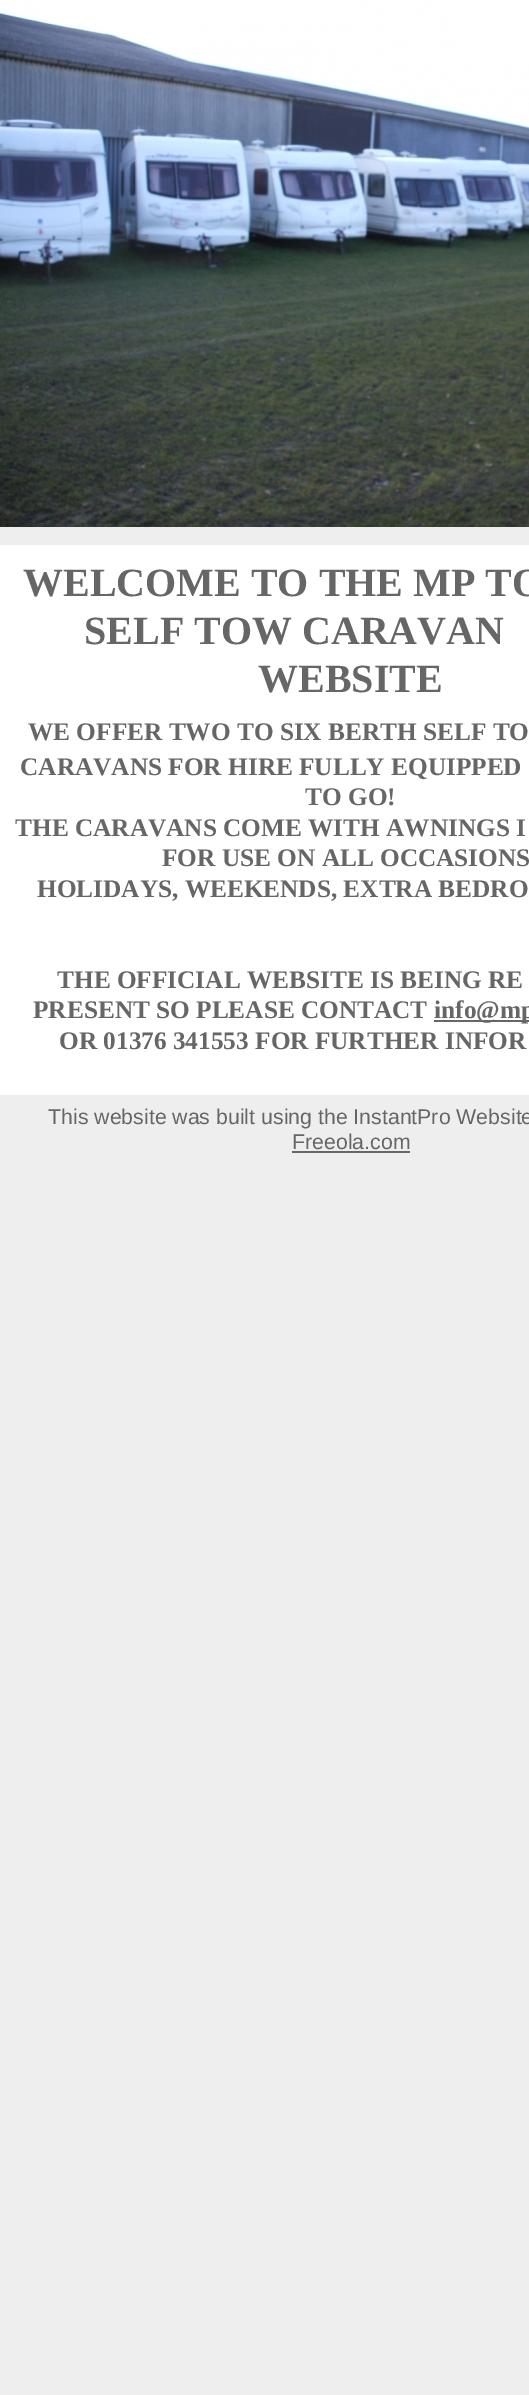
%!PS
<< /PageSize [529 2395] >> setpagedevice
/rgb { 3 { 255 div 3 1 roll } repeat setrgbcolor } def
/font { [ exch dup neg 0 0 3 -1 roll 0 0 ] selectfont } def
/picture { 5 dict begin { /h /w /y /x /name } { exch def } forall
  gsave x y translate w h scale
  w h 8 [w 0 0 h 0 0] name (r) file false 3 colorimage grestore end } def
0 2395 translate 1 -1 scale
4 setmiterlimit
238 238 238 rgb
0 0 529 2395 rectfill
(img/1.rgb) 0 0 529 527 picture
[
  [0 545 529 550 255 255 255]
  [434 1020 95 2 102 102 102]
  [292 1151 118 2 102 102 102]
] { aload pop rgb rectfill } forall
/LiberationSerif-Bold 40 font
[
  [(WELCOME TO THE MP TO) 23 596]
  [(SELF TOW CARAVAN) 84 644]
  [(WEBSITE) 258 692]
] { aload pop moveto show } forall
/LiberationSerif-Bold 25.3 font
[
  [(WE OFFER TWO TO SIX BERTH SELF TO) 28 740]
  [(CARAVANS FOR HIRE FULLY EQUIPPED) 20 775]
  [(TO GO!) 305 805]
  [(THE CARAVANS COME WITH AWNINGS I) 15 836]
  [(FOR USE ON ALL OCCASIONS) 162 866]
  [(HOLIDAYS, WEEKENDS, EXTRA BEDRO) 37 897]
  [(THE OFFICIAL WEBSITE IS BEING RE) 57 988]
  [(PRESENT SO PLEASE CONTACT) 33 1018]
  [(info@mp) 434 1018]
  [(OR 01376 341553 FOR FURTHER INFOR) 59 1049]
] { aload pop moveto show } forall
/LiberationSans-Regular 21.3 font
48 1124 moveto (This website was built using the InstantPro Website) show
292 1149 moveto (Freeola.com) show
showpage
